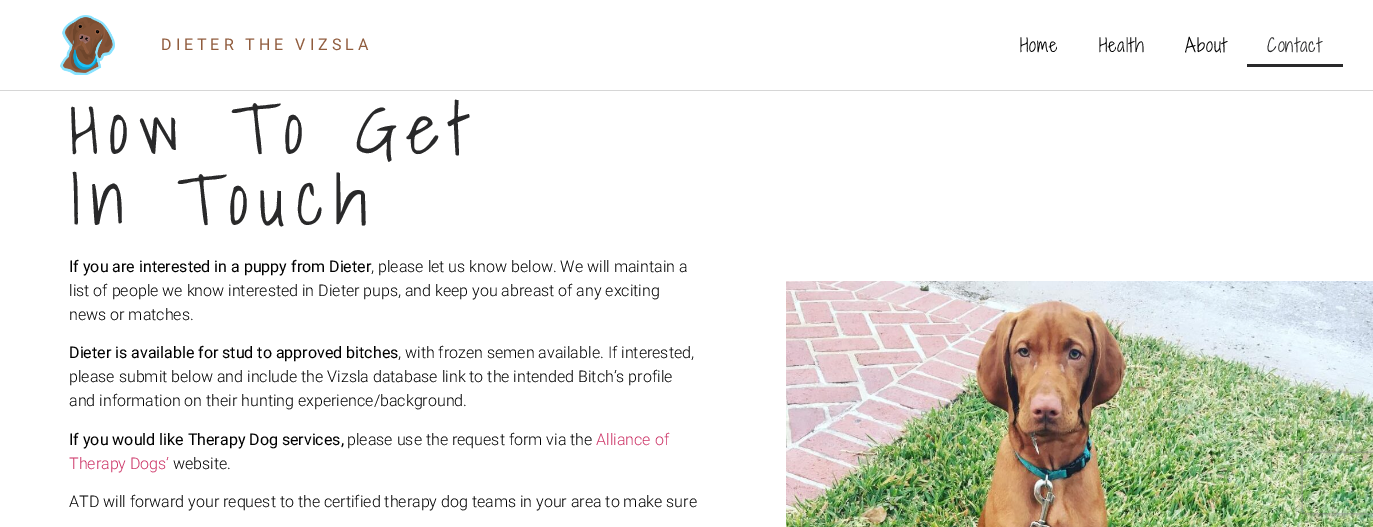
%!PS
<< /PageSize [1373 527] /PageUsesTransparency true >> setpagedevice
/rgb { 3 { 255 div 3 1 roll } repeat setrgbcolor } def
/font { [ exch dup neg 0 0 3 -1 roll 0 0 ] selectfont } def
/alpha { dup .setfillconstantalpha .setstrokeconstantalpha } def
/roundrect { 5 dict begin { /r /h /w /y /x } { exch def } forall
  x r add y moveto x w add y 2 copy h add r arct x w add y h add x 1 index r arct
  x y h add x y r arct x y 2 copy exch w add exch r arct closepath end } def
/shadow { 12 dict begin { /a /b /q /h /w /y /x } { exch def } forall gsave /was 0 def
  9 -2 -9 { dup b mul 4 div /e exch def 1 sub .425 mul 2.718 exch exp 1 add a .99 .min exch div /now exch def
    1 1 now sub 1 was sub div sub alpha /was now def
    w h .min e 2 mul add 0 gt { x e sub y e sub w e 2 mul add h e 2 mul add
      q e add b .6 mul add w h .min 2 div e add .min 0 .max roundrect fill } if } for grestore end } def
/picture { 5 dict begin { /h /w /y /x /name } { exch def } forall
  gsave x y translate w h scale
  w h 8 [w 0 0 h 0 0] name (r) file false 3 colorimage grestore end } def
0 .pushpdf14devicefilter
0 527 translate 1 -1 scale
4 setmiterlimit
255 255 255 rgb
0 0 1373 527 rectfill
214 214 214 rgb
0 90 1373 1 rectfill
(img/1.rgb) 60 15 55 60 picture
41 41 42 rgb
1247 64 96 3 rectfill
(img/2.rgb) 786 281 587 246 picture
gsave
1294 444 moveto 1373 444 lineto 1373 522 lineto 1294 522 lineto closepath 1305 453 moveto 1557 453 lineto 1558 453 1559 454 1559 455 curveto 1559 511 lineto 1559 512 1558 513 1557 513 curveto 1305 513 lineto 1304 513 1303 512 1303 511 curveto 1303 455 lineto 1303 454 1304 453 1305 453 curveto closepath eoclip newpath
128 128 128 rgb
1303 453 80 60 2 2.5 1 shadow
grestore
/Roboto-Regular 16 font
144 92 61 rgb
161 50 moveto 4 0 (DIETER THE VIZSLA) ashow
/ShadowsIntoLightTwo-Light 18 font
0 0 0 rgb
1020 52 moveto 1 0 (Home) ashow
1099 52 moveto 1 0 (Health) ashow
1185 52 moveto 1 0 (About) ashow
41 41 42 rgb
1267 52 moveto 1 0 (Contact) ashow
/ShadowsIntoLight-Light 71.5 font
69 154 moveto 10 0 (How To Get) ashow
69 225 moveto 10 0 (In Touch) ashow
/Roboto-Regular 16 font
0 0 0 rgb
69 272 moveto (If you are interested in a puppy from Dieter) show
/Roboto-Light 16 font
[
  [(, please let us know below. We will maintain a) 371 272]
  [(list of people we know interested in Dieter pups, and keep you abreast of any exciting) 69 296]
  [(news or matches.) 69 320]
] { aload pop moveto show } forall
/Roboto-Regular 16 font
69 358 moveto (Dieter is available for stud to approved bitches) show
/Roboto-Light 16 font
[
  [(, with frozen semen available. If interested,) 398 358]
  [(please submit below and include the Vizsla database link to the intended Bitch’s profile) 69 382]
  [(and information on their hunting experience/background.) 69 406]
] { aload pop moveto show } forall
/Roboto-Regular 16 font
69 445 moveto (If you would like Therapy Dog services,) show
/Roboto-Light 16 font
347 445 moveto (please use the request form via the) show
204 51 102 rgb
596 445 moveto (Alliance of) show
69 469 moveto (Therapy Dogs’) show
0 0 0 rgb
173 469 moveto (website.) show
69 507 moveto (ATD will forward your request to the certified therapy dog teams in your area to make sure) show
.poppdf14devicefilter showpage
